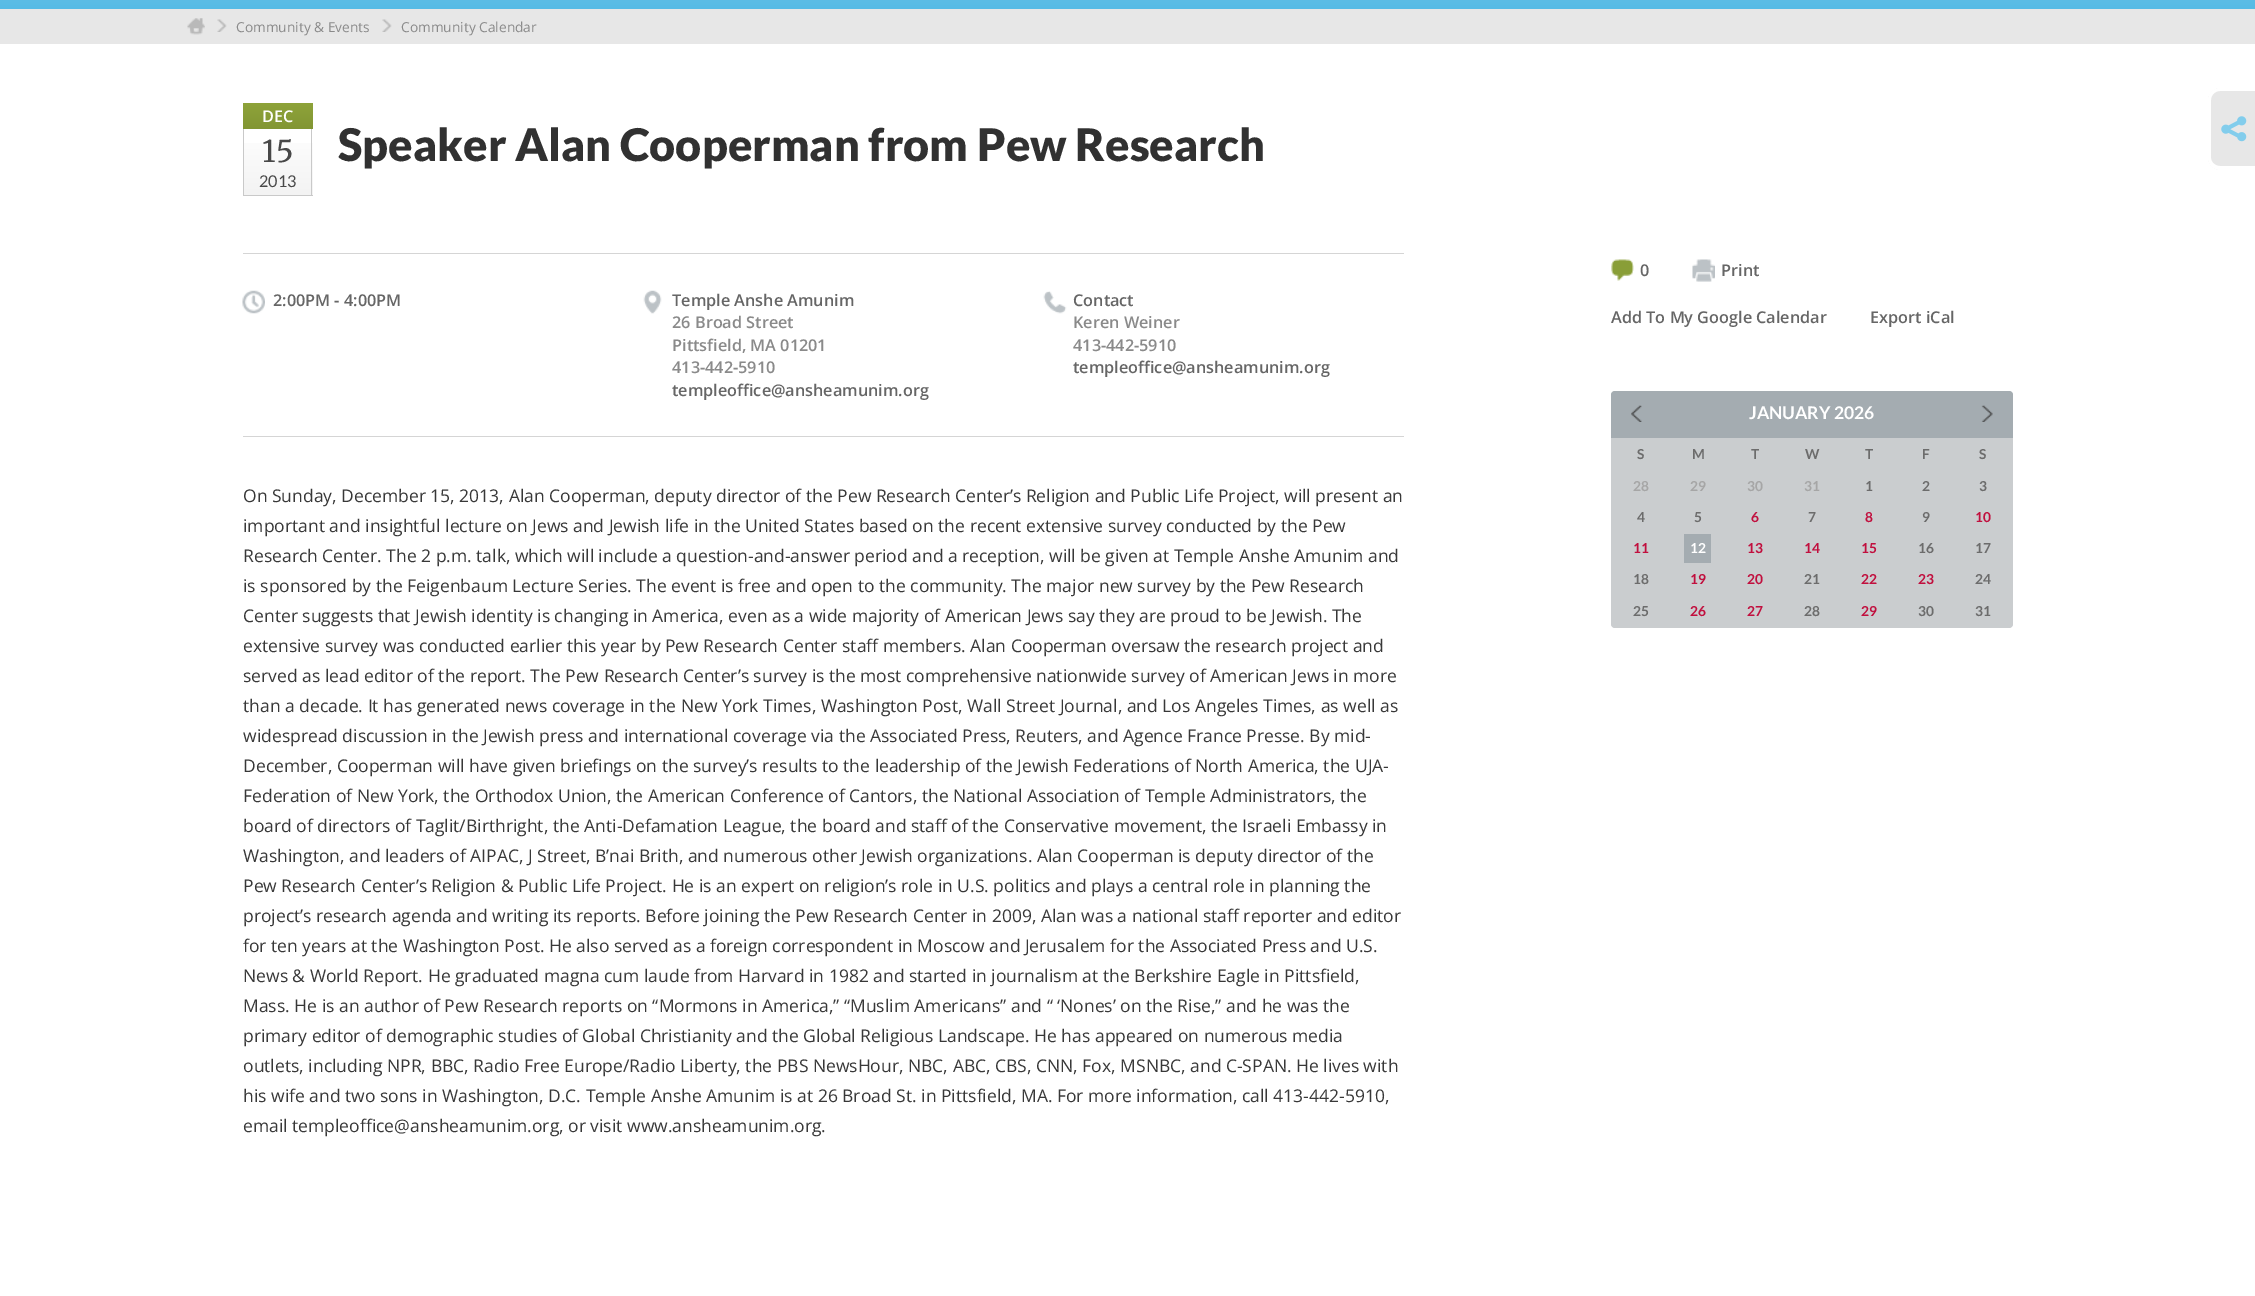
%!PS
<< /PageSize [2255 1296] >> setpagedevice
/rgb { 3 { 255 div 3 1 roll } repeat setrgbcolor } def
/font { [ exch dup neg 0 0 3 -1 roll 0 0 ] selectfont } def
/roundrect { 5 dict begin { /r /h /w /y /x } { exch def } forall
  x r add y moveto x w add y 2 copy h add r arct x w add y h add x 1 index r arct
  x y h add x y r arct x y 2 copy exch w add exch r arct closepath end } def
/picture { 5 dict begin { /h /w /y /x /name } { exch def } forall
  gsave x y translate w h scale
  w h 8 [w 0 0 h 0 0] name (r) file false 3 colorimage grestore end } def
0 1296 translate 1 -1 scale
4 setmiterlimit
255 255 255 rgb
0 0 2255 1296 rectfill
gsave 0 0 moveto 2255 0 lineto 2255 9 lineto 0 9 lineto closepath clip newpath
<< /ShadingType 2 /ColorSpace /DeviceRGB /Coords [1128 -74 1128 9] /Extend [true true] /Function << /FunctionType 2 /Domain [0 1] /C0 [0.51 0.804 0.925] /C1 [0.337 0.733 0.898] /N 1 >> >> shfill grestore
231 231 231 rgb
0 9 2255 35 rectfill
(img/1.rgb) 187 18 18 17 picture
(img/2.rgb) 217 19 10 13 picture
(img/3.rgb) 382 19 10 13 picture
gsave 243 103 moveto 313 103 lineto 313 129 lineto 243 129 lineto closepath clip newpath
<< /ShadingType 2 /ColorSpace /DeviceRGB /Coords [278 103 278 129] /Extend [true true] /Function << /FunctionType 2 /Domain [0 1] /C0 [0.557 0.639 0.227] /C1 [0.51 0.588 0.2] /N 1 >> >> shfill grestore
gsave 244 143 moveto 313 143 lineto 313 195 lineto 244 195 lineto closepath clip newpath
<< /ShadingType 2 /ColorSpace /DeviceRGB /Coords [278 129 278 195] /Extend [true true] /Function << /FunctionType 2 /Domain [0 1] /C0 [1 1 1] /C1 [0.953 0.953 0.953] /N 1 >> >> shfill grestore
[
  [311 129 1 67 201 201 201]
  [243 195 70 1 201 201 201]
  [243 129 1 67 201 201 201]
  [243 253 1161 1 213 213 213]
] { aload pop rgb rectfill } forall
(img/4.rgb) 242 290 23 24 picture
(img/5.rgb) 643 290 19 24 picture
(img/6.rgb) 1043 291 24 23 picture
243 436 1161 1 rectfill
(img/7.rgb) 1611 259 23 22 picture
(img/8.rgb) 1692 259 23 23 picture
202 205 207 rgb
1611 391 402 237 4 roundrect fill
164 172 177 rgb
1615 391 moveto 2009 391 lineto 2011 391 2013 393 2013 395 curveto 2013 438 lineto 1611 438 lineto 1611 395 lineto 1611 393 1613 391 1615 391 curveto closepath fill
(img/9.rgb) 1631 405 11 17 picture
(img/10.rgb) 1981 405 12 17 picture
1684 534 27 29 rectfill
231 231 231 rgb
2221 88 moveto 2255 88 lineto 2255 170 lineto 2221 170 lineto 2214 170 2208 164 2208 157 curveto 2208 101 lineto 2208 94 2214 88 2221 88 curveto closepath fill
255 255 255 rgb
2220 88 moveto 2255 88 lineto 2255 170 lineto 2220 170 lineto 2213 170 2208 164 2208 158 curveto 2208 100 lineto 2208 93 2213 88 2220 88 curveto closepath 2220 91 moveto 2255 91 lineto 2255 166 lineto 2220 166 lineto 2215 166 2211 162 2211 158 curveto 2211 100 lineto 2211 95 2215 91 2220 91 curveto closepath eofill
(img/11.rgb) 2221 116 26 26 picture
/OpenSans-Regular 13.75 font
138 138 138 rgb
236 32 moveto (Community & Events) show
401 32 moveto (Community Calendar) show
/OpenSans-SemiBold 16.25 font
255 255 255 rgb
262 122 moveto (DEC) show
/Merriweather-Regular 30 font
72 72 72 rgb
262 162 moveto (15) show
/Lato-Regular 16.25 font
259 187 moveto (2013) show
/Lato-Black 45 font
49 49 49 rgb
338 161 moveto (Speaker Alan Cooperman from Pew Research) show
/OpenSans-SemiBold 16.25 font
102 102 102 rgb
273 306 moveto (2:00PM - 4:00PM) show
672 306 moveto (Temple Anshe Amunim) show
138 138 138 rgb
[
  [(26 Broad Street) 672 328]
  [(Pittsfield, MA 01201) 672 351]
  [(413-442-5910) 672 373]
] { aload pop moveto show } forall
102 102 102 rgb
672 396 moveto (templeoffice@ansheamunim.org) show
1073 306 moveto (Contact) show
138 138 138 rgb
1073 328 moveto (Keren Weiner) show
1073 351 moveto (413-442-5910) show
102 102 102 rgb
1073 373 moveto (templeoffice@ansheamunim.org) show
/OpenSans-Regular 17.5 font
56 56 56 rgb
[
  [(On Sunday, December 15, 2013, Alan Cooperman, deputy director of the Pew Research Center’s Religion and Public Life Project, will present an) 243 502]
  [(important and insightful lecture on Jews and Jewish life in the United States based on the recent extensive survey conducted by the Pew) 243 532]
  [(Research Center. The 2 p.m. talk, which will include a question-and-answer period and a reception, will be given at Temple Anshe Amunim and) 243 562]
  [(is sponsored by the Feigenbaum Lecture Series. The event is free and open to the community. The major new survey by the Pew Research) 243 592]
  [(Center suggests that Jewish identity is changing in America, even as a wide majority of American Jews say they are proud to be Jewish. The) 243 622]
  [(extensive survey was conducted earlier this year by Pew Research Center staff members. Alan Cooperman oversaw the research project and) 243 652]
  [(served as lead editor of the report. The Pew Research Center’s survey is the most comprehensive nationwide survey of American Jews in more) 243 682]
  [(than a decade. It has generated news coverage in the New York Times, Washington Post, Wall Street Journal, and Los Angeles Times, as well as) 243 712]
  [(widespread discussion in the Jewish press and international coverage via the Associated Press, Reuters, and Agence France Presse. By mid-) 243 742]
  [(December, Cooperman will have given briefings on the survey’s results to the leadership of the Jewish Federations of North America, the UJA-) 243 772]
  [(Federation of New York, the Orthodox Union, the American Conference of Cantors, the National Association of Temple Administrators, the) 243 802]
  [(board of directors of Taglit/Birthright, the Anti-Defamation League, the board and staff of the Conservative movement, the Israeli Embassy in) 243 832]
  [(Washington, and leaders of AIPAC, J Street, B’nai Brith, and numerous other Jewish organizations. Alan Cooperman is deputy director of the) 243 862]
  [(Pew Research Center’s Religion & Public Life Project. He is an expert on religion’s role in U.S. politics and plays a central role in planning the) 243 892]
  [(project’s research agenda and writing its reports. Before joining the Pew Research Center in 2009, Alan was a national staff reporter and editor) 243 922]
  [(for ten years at the Washington Post. He also served as a foreign correspondent in Moscow and Jerusalem for the Associated Press and U.S.) 243 952]
  [(News & World Report. He graduated magna cum laude from Harvard in 1982 and started in journalism at the Berkshire Eagle in Pittsfield,) 243 982]
  [(Mass. He is an author of Pew Research reports on “Mormons in America,” “Muslim Americans” and “ ‘Nones’ on the Rise,” and he was the) 243 1012]
  [(primary editor of demographic studies of Global Christianity and the Global Religious Landscape. He has appeared on numerous media) 243 1042]
  [(outlets, including NPR, BBC, Radio Free Europe/Radio Liberty, the PBS NewsHour, NBC, ABC, CBS, CNN, Fox, MSNBC, and C-SPAN. He lives with) 243 1072]
  [(his wife and two sons in Washington, D.C. Temple Anshe Amunim is at 26 Broad St. in Pittsfield, MA. For more information, call 413-442-5910,) 243 1102]
  [(email templeoffice@ansheamunim.org, or visit www.ansheamunim.org.) 243 1132]
] { aload pop moveto show } forall
/OpenSans-SemiBold 16.25 font
102 102 102 rgb
[
  [(0) 1640 276]
  [(Print) 1721 276]
  [(Add To My Google Calendar) 1611 323]
  [(Export iCal) 1870 323]
] { aload pop moveto show } forall
/Lato-Bold 17.5 font
255 255 255 rgb
1749 419 moveto (JANUARY 2026) show
/Lato-Bold 13.75 font
108 108 108 rgb
[
  [(S) 1637 459]
  [(M) 1692 459]
  [(T) 1751 459]
  [(W) 1805 459]
  [(T) 1865 459]
  [(F) 1922 459]
  [(S) 1979 459]
] { aload pop moveto show } forall
166 166 166 rgb
[
  [(28) 1633 491]
  [(29) 1690 491]
  [(30) 1747 491]
  [(31) 1804 491]
] { aload pop moveto show } forall
108 108 108 rgb
[
  [(1) 1865 491]
  [(2) 1922 491]
  [(3) 1979 491]
  [(4) 1637 522]
  [(5) 1694 522]
] { aload pop moveto show } forall
193 15 62 rgb
1751 522 moveto (6) show
108 108 108 rgb
1808 522 moveto (7) show
193 15 62 rgb
1865 522 moveto (8) show
108 108 108 rgb
1922 522 moveto (9) show
193 15 62 rgb
1975 522 moveto (10) show
1633 553 moveto (11) show
255 255 255 rgb
1690 553 moveto (12) show
193 15 62 rgb
[
  [(13) 1747 553]
  [(14) 1804 553]
  [(15) 1861 553]
] { aload pop moveto show } forall
108 108 108 rgb
[
  [(16) 1918 553]
  [(17) 1975 553]
  [(18) 1633 584]
] { aload pop moveto show } forall
193 15 62 rgb
1690 584 moveto (19) show
1747 584 moveto (20) show
108 108 108 rgb
1804 584 moveto (21) show
193 15 62 rgb
1861 584 moveto (22) show
1918 584 moveto (23) show
108 108 108 rgb
1975 584 moveto (24) show
1633 616 moveto (25) show
193 15 62 rgb
1690 616 moveto (26) show
1747 616 moveto (27) show
108 108 108 rgb
1804 616 moveto (28) show
193 15 62 rgb
1861 616 moveto (29) show
108 108 108 rgb
1918 616 moveto (30) show
1975 616 moveto (31) show
showpage
